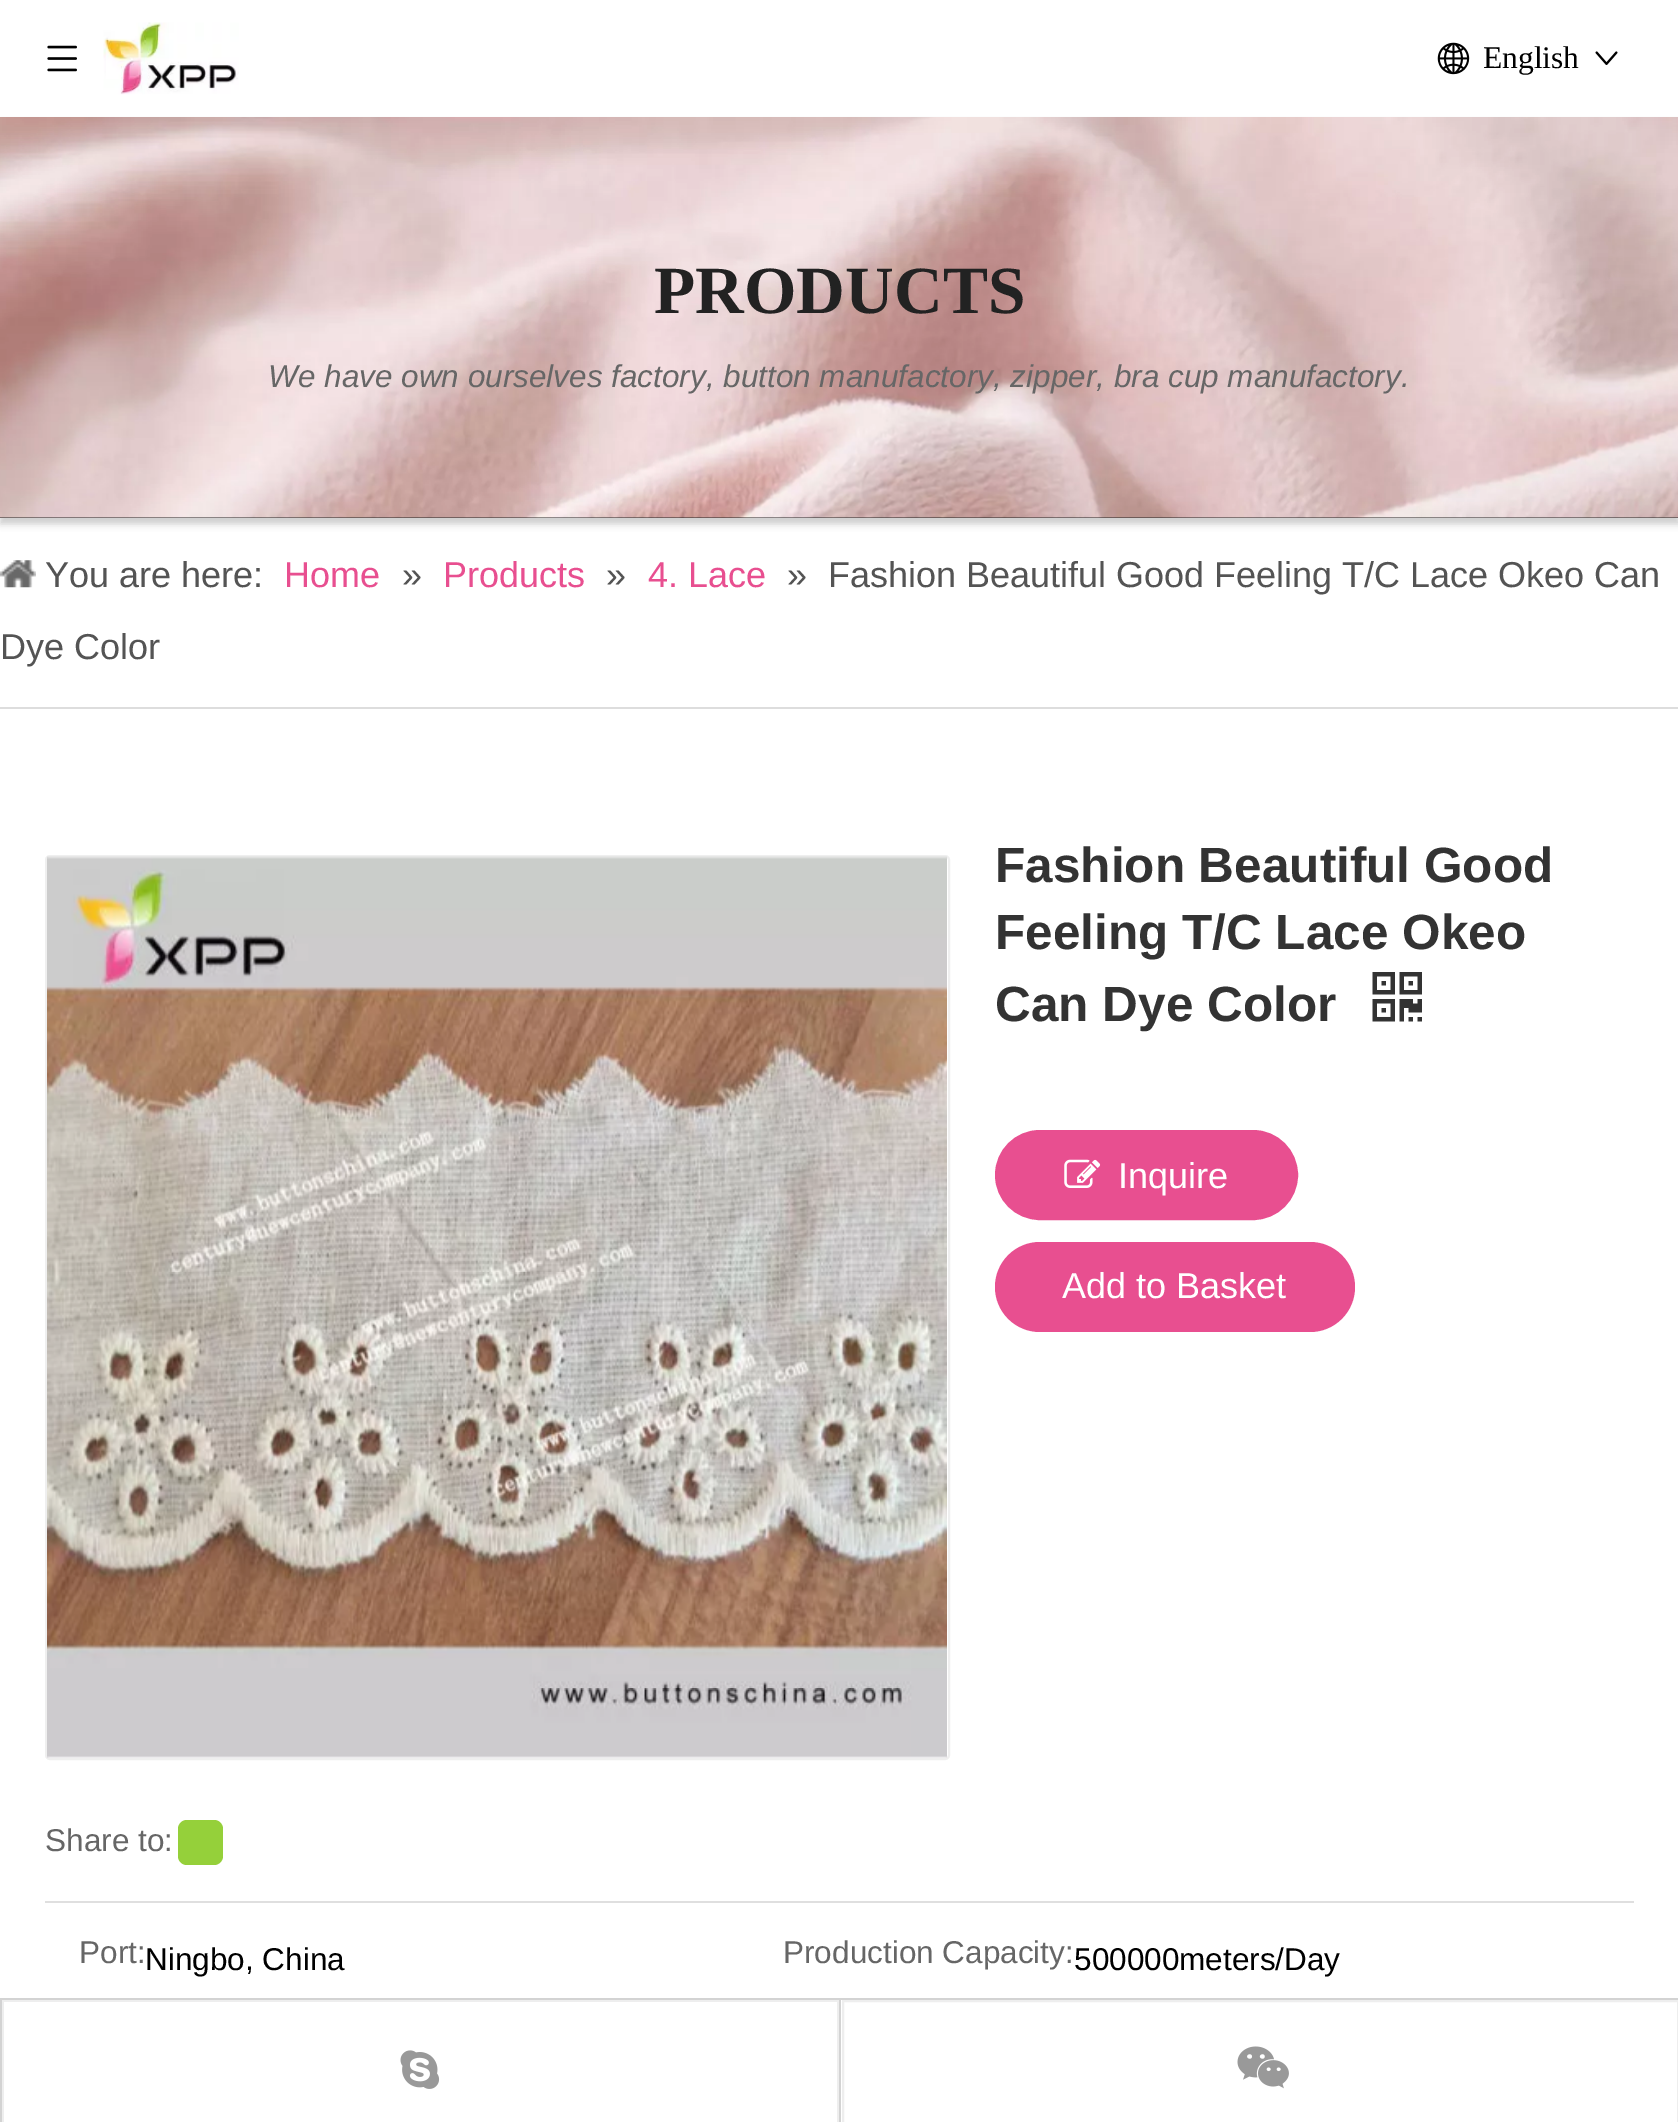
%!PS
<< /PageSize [1678 2122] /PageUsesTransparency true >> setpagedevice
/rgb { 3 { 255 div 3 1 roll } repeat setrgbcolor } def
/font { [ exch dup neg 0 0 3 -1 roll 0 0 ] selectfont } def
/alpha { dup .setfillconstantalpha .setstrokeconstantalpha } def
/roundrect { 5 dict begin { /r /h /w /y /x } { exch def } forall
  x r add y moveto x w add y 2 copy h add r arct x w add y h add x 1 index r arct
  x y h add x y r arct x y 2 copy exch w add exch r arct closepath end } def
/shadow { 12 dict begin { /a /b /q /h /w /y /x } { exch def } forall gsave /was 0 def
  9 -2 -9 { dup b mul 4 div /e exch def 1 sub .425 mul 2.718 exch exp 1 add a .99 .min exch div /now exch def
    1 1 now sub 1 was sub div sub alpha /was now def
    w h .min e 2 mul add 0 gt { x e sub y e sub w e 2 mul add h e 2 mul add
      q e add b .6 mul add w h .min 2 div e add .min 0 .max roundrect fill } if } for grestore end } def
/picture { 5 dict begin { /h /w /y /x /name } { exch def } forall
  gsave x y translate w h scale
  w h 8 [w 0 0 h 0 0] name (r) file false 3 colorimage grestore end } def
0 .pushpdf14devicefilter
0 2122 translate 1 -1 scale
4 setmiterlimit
255 255 255 rgb
0 0 1678 2122 rectfill
(img/1.rgb) 47 45 30 27 picture
(img/2.rgb) 103 22 136 73 picture
(img/3.rgb) 1437 42 33 33 picture
(img/4.rgb) 1595 51 23 14 picture
204 204 204 rgb
0 124 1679 400 0 3.5 1 shadow
34 34 34 rgb
0 517 1678 1 rectfill
(img/5.rgb) 0 117 1678 401 picture
221 221 221 rgb
0 707 1678 2 rectfill
(img/6.rgb) 0 560 36 28 picture
(img/7.rgb) 1372 972 50 50 picture
232 79 144 rgb
996 1131 301 88 44 roundrect gsave fill grestore
2 setlinewidth
stroke
(img/8.rgb) 1064 1159 37 29 picture
995 1242 360 90 45 roundrect fill
239 239 239 rgb
46 856 903 903 4 roundrect stroke
(img/9.rgb) 47 856 900 902 picture
149 208 58 rgb
178 1820 45 45 9 roundrect fill
[
  [45 1901 1589 2 223 223 223]
  [0 1998 1678 2 211 211 211]
  [0 2000 2 122 211 211 211]
  [2 2000 837 2 238 238 238]
  [837 2000 2 122 238 238 238]
  [2 2000 2 122 238 238 238]
] { aload pop rgb rectfill } forall
(img/10.rgb) 400 2050 40 39 picture
211 211 211 rgb
839 2000 2 122 rectfill
238 238 238 rgb
843 2001 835 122 rectstroke
(img/11.rgb) 1237 2046 52 43 picture
/LiberationSerif-Regular 31.5 font
0 0 0 rgb
1483 68 moveto (English) show
/LiberationSerif-Bold 67.5 font
34 34 34 rgb
654 313 moveto (PRODUCTS) show
/LiberationSans-Italic 31.5 font
102 102 102 rgb
268 387 moveto (We have own ourselves factory, button manufactory, zipper, bra cup manufactory.) show
/LiberationSans-Regular 36 font
84 84 84 rgb
45 587 moveto (You are here:) show
232 79 144 rgb
284 587 moveto (Home) show
84 84 84 rgb
402 587 moveto (») show
232 79 144 rgb
443 587 moveto (Products) show
84 84 84 rgb
606 587 moveto (») show
232 79 144 rgb
648 587 moveto (4. Lace) show
84 84 84 rgb
[
  [(») 787 587]
  [(Fashion Beautiful Good Feeling T/C Lace Okeo Can) 828 587]
  [(Dye Color) 0 659]
] { aload pop moveto show } forall
/LiberationSans-Bold 49.5 font
51 51 51 rgb
[
  [(Fashion Beautiful Good) 995 882]
  [(Feeling T/C Lace Okeo) 995 949]
  [(Can Dye Color) 995 1021]
] { aload pop moveto show } forall
/LiberationSans-Regular 36 font
255 255 255 rgb
1118 1188 moveto (Inquire) show
1062 1298 moveto (Add to Basket) show
/LiberationSans-Regular 31.5 font
102 102 102 rgb
45 1851 moveto (Share to:) show
79 1963 moveto (Port:) show
0 0 0 rgb
145 1970 moveto (Ningbo, China) show
102 102 102 rgb
783 1963 moveto (Production Capacity:) show
0 0 0 rgb
1074 1970 moveto (500000meters/Day) show
.poppdf14devicefilter showpage
